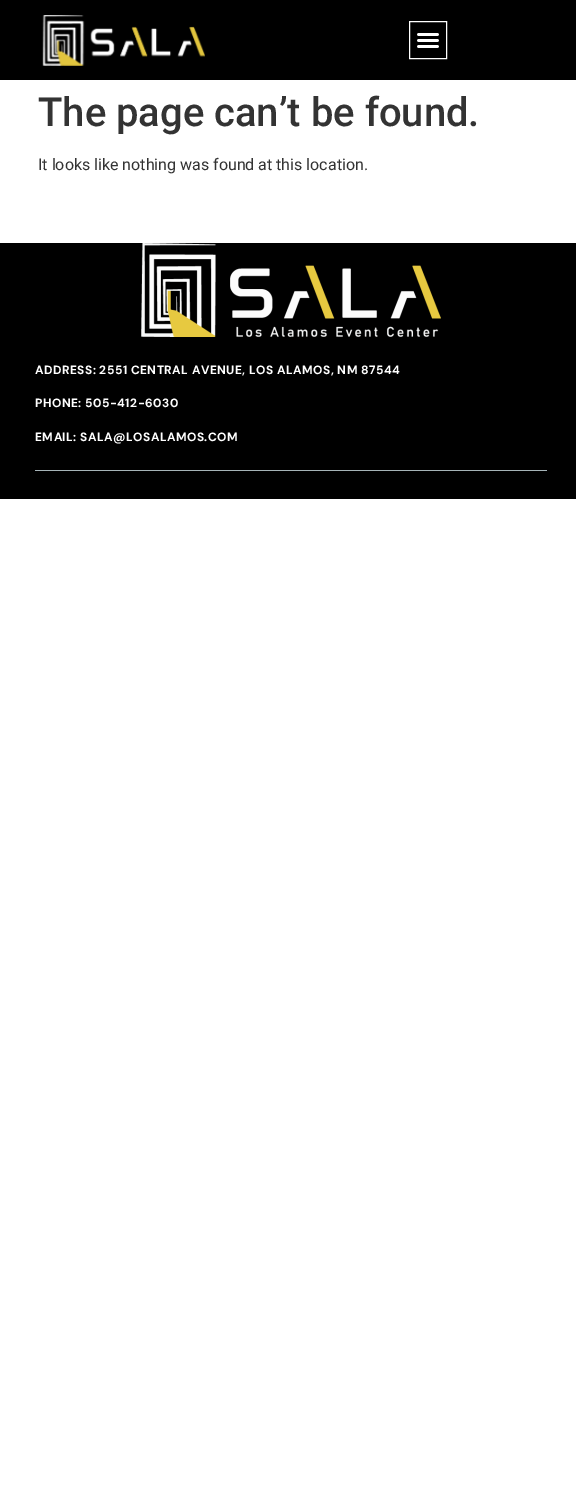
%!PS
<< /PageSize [576 1494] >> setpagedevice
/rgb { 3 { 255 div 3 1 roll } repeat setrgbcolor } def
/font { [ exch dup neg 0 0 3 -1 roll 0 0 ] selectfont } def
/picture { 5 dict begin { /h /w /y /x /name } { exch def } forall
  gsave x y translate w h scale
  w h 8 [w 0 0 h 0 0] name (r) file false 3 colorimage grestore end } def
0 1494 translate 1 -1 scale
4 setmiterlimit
255 255 255 rgb
0 0 576 1494 rectfill
0 0 0 rgb
0 0 576 80 rectfill
(img/1.rgb) 42 15 163 51 picture
255 255 255 rgb
409.5 21.5 37 37 rectstroke
(img/2.rgb) 417 33 22 15 picture
0 0 0 rgb
0 243 576 256 rectfill
(img/3.rgb) 141 243 300 94 picture
166 180 184 rgb
35 470 512 1 rectfill
/Roboto-Medium 40 font
51 51 51 rgb
38 126 moveto (The page can’t be found.) show
/Roboto-Regular 16 font
38 170 moveto (It looks like nothing was found at this location.) show
/DMSans-Bold 12 font
255 255 255 rgb
35 374 moveto 0.45 0 (ADDRESS: 2551 CENTRAL AVENUE, LOS ALAMOS, NM 87544) ashow
35 407 moveto 0.45 0 (PHONE: 505-412-6030) ashow
35 441 moveto 0.45 0 (EMAIL: SALA@LOSALAMOS.COM) ashow
showpage
